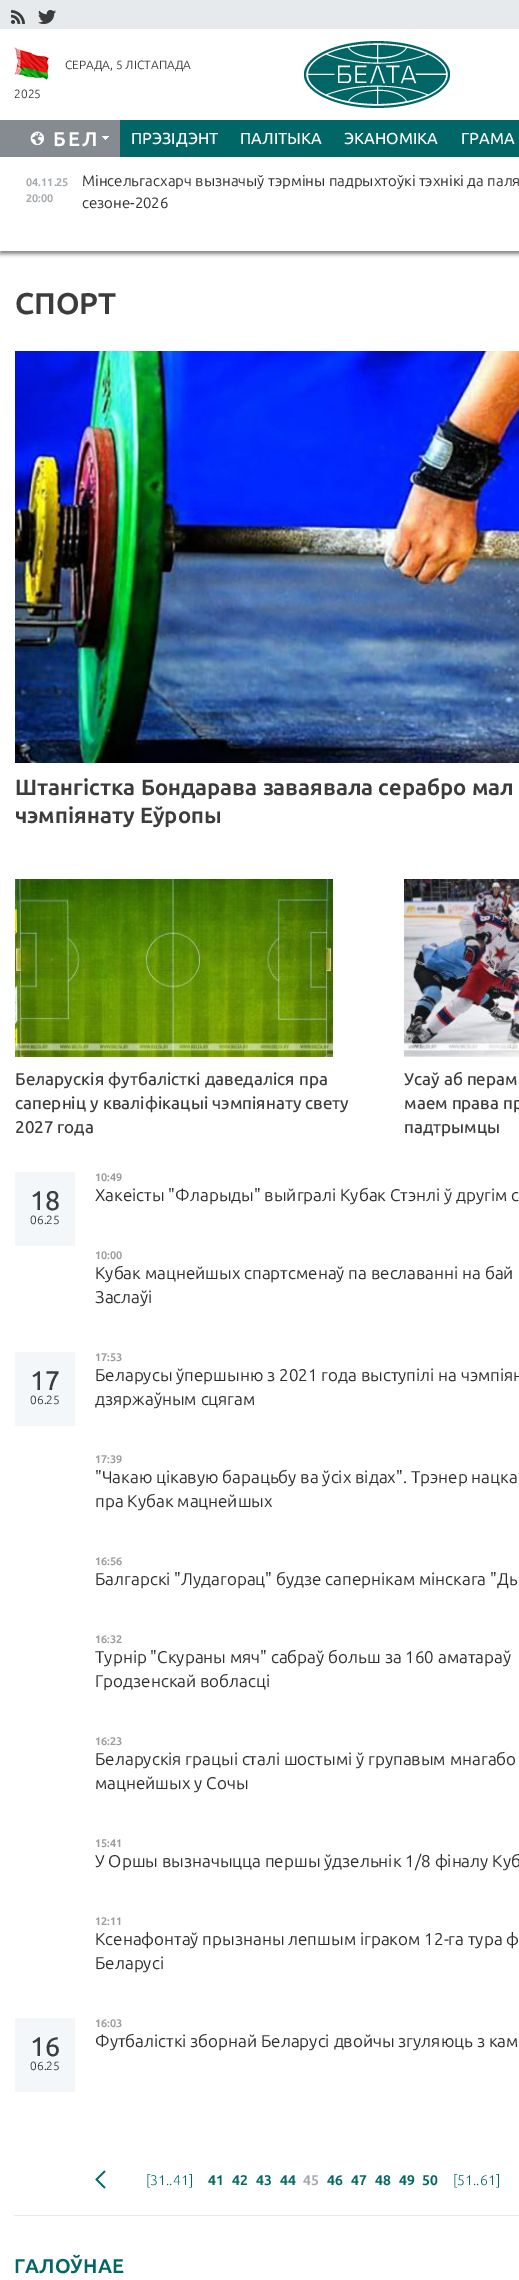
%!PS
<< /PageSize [519 2280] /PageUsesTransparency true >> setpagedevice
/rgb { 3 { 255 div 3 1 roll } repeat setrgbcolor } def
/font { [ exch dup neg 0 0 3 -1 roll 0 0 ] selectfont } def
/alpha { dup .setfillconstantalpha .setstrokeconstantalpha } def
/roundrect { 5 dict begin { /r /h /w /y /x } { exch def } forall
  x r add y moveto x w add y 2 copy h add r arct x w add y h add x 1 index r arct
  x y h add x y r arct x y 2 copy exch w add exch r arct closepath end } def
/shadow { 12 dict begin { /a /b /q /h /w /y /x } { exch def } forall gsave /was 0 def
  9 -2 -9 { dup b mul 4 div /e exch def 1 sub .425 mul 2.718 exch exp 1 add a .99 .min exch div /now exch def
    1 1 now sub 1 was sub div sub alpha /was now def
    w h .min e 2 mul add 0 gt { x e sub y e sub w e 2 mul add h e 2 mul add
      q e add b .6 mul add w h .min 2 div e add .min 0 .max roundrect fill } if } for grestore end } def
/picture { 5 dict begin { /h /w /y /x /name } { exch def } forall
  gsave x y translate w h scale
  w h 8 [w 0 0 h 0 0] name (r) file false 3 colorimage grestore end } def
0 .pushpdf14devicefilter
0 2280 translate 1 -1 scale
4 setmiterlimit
255 255 255 rgb
0 0 519 2280 rectfill
230 234 237 rgb
0 0 519 29 rectfill
(img/1.rgb) 11 10 14 14 picture
(img/2.rgb) 38 10 18 14 picture
(img/3.rgb) 14 47 35 33 picture
(img/4.rgb) 304 41 146 67 picture
0 102 102 rgb
120 120 399 37 rectfill
133 139 144 rgb
0 120 120 37 rectfill
(img/5.rgb) 30 131 14 14 picture
(img/6.rgb) 102 136 7 4 picture
gsave
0 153 moveto 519 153 lineto 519 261 lineto 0 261 lineto closepath 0 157 moveto 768 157 lineto 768 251 lineto 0 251 lineto closepath eoclip newpath
100 100 100 rgb
0 160 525 94 0 2 0.8 shadow
grestore
(img/7.rgb) 15 351 504 412 picture
(img/8.rgb) 15 879 318 178 picture
(img/9.rgb) 404 879 115 178 picture
[
  [15 1172 60 74 244 247 249]
  [15 1352 60 74 244 247 249]
  [15 2018 60 74 244 247 249]
] { aload pop rgb rectfill } forall
(img/10.rgb) 95 2170 11 19 picture
230 234 237 rgb
14 2215 505 1 rectfill
/Ubuntu-Regular 12 font
60 60 60 rgb
65 69 moveto (СЕРАДА, 5 ЛІСТАПАДА) show
14 98 moveto (2025) show
/Ubuntu-Bold 20 font
255 255 255 rgb
53 146 moveto 2 0 (БЕЛ) ashow
/Ubuntu-Medium 16 font
[
  [(ПРЭЗІДЭНТ) 131 144]
  [(ПАЛІТЫКА) 240 144]
  [(ЭКАНОМІКА) 344 144]
  [(ГРАМА) 461 144]
] { aload pop moveto show } forall
/Ubuntu-Bold 11 font
163 169 173 rgb
26 186 moveto (04.11.25) show
26 202 moveto (20:00) show
/Ubuntu-Regular 15 font
46 46 46 rgb
82 186 moveto (Мінсельгасхарч вызначыў тэрміны падрыхтоўкі тэхнікі да паля) show
82 208 moveto (сезоне-2026) show
/Ubuntu-Bold 30 font
60 60 60 rgb
15 314 moveto (СПОРТ) show
/Ubuntu-Bold 22 font
15 795 moveto (Штангістка Бондарава заваявала серабро мал) show
15 823 moveto (чэмпіянату Еўропы) show
/Ubuntu-Medium 17 font
[
  [(Беларускія футбалісткі даведаліся пра) 15 1085]
  [(саперніц у кваліфікацыі чэмпіянату свету) 15 1109]
  [(2027 года) 15 1133]
  [(Усаў аб перам) 404 1085]
  [(маем права пр) 404 1109]
  [(падтрымцы) 404 1133]
] { aload pop moveto show } forall
/Ubuntu-Medium 27 font
30 1210 moveto (18) show
/Ubuntu-Regular 12 font
30 1224 moveto (06.25) show
/Ubuntu-Bold 11 font
155 155 155 rgb
95 1181 moveto (10:49) show
/Ubuntu-Regular 17 font
46 46 46 rgb
95 1201 moveto (Хакеісты "Фларыды" выйгралі Кубак Стэнлі ў другім с) show
/Ubuntu-Bold 11 font
155 155 155 rgb
95 1259 moveto (10:00) show
/Ubuntu-Regular 17 font
46 46 46 rgb
95 1279 moveto (Кубак мацнейшых спартсменаў па веславанні на бай) show
95 1303 moveto (Заслаўі) show
/Ubuntu-Medium 27 font
60 60 60 rgb
30 1390 moveto (17) show
/Ubuntu-Regular 12 font
30 1404 moveto (06.25) show
/Ubuntu-Bold 11 font
155 155 155 rgb
95 1361 moveto (17:53) show
/Ubuntu-Regular 17 font
46 46 46 rgb
95 1381 moveto (Беларусы ўпершыню з 2021 года выступілі на чэмпіян) show
95 1405 moveto (дзяржаўным сцягам) show
/Ubuntu-Bold 11 font
155 155 155 rgb
95 1463 moveto (17:39) show
/Ubuntu-Regular 17 font
46 46 46 rgb
95 1483 moveto ("Чакаю цікавую барацьбу ва ўсіх відах". Трэнер нацка) show
95 1507 moveto (пра Кубак мацнейшых) show
/Ubuntu-Bold 11 font
155 155 155 rgb
95 1565 moveto (16:56) show
/Ubuntu-Regular 17 font
46 46 46 rgb
95 1585 moveto (Балгарскі "Лудагорац" будзе сапернікам мінскага "Ды) show
/Ubuntu-Bold 11 font
155 155 155 rgb
95 1643 moveto (16:32) show
/Ubuntu-Regular 17 font
46 46 46 rgb
95 1663 moveto (Турнір "Скураны мяч" сабраў больш за 160 аматараў) show
95 1687 moveto (Гродзенскай вобласці) show
/Ubuntu-Bold 11 font
155 155 155 rgb
95 1745 moveto (16:23) show
/Ubuntu-Regular 17 font
46 46 46 rgb
95 1765 moveto (Беларускія грацыі сталі шостымі ў групавым мнагабо) show
95 1789 moveto (мацнейшых у Сочы) show
/Ubuntu-Bold 11 font
155 155 155 rgb
95 1847 moveto (15:41) show
/Ubuntu-Regular 17 font
46 46 46 rgb
95 1867 moveto (У Оршы вызначыцца першы ўдзельнік 1/8 фіналу Куб) show
/Ubuntu-Bold 11 font
155 155 155 rgb
95 1925 moveto (12:11) show
/Ubuntu-Regular 17 font
46 46 46 rgb
95 1945 moveto (Ксенафонтаў прызнаны лепшым іграком 12-га тура ф) show
95 1969 moveto (Беларусі) show
/Ubuntu-Medium 27 font
60 60 60 rgb
30 2056 moveto (16) show
/Ubuntu-Regular 12 font
30 2070 moveto (06.25) show
/Ubuntu-Bold 11 font
155 155 155 rgb
95 2027 moveto (16:03) show
/Ubuntu-Regular 17 font
46 46 46 rgb
95 2047 moveto (Футбалісткі зборнай Беларусі двойчы згуляюць з кам) show
/Ubuntu-Light 14 font
0 102 102 rgb
146 2185 moveto ([31..41]) show
/Ubuntu-Bold 14 font
[
  [(41) 208 2185]
  [(42) 232 2185]
  [(43) 256 2185]
  [(44) 280 2185]
] { aload pop moveto show } forall
163 169 173 rgb
303 2185 moveto (45) show
0 102 102 rgb
[
  [(46) 327 2185]
  [(47) 351 2185]
  [(48) 375 2185]
  [(49) 399 2185]
  [(50) 422 2185]
] { aload pop moveto show } forall
/Ubuntu-Light 14 font
453 2185 moveto ([51..61]) show
/Ubuntu-Bold 20 font
14 2273 moveto (ГАЛОЎНАЕ) show
.poppdf14devicefilter showpage
